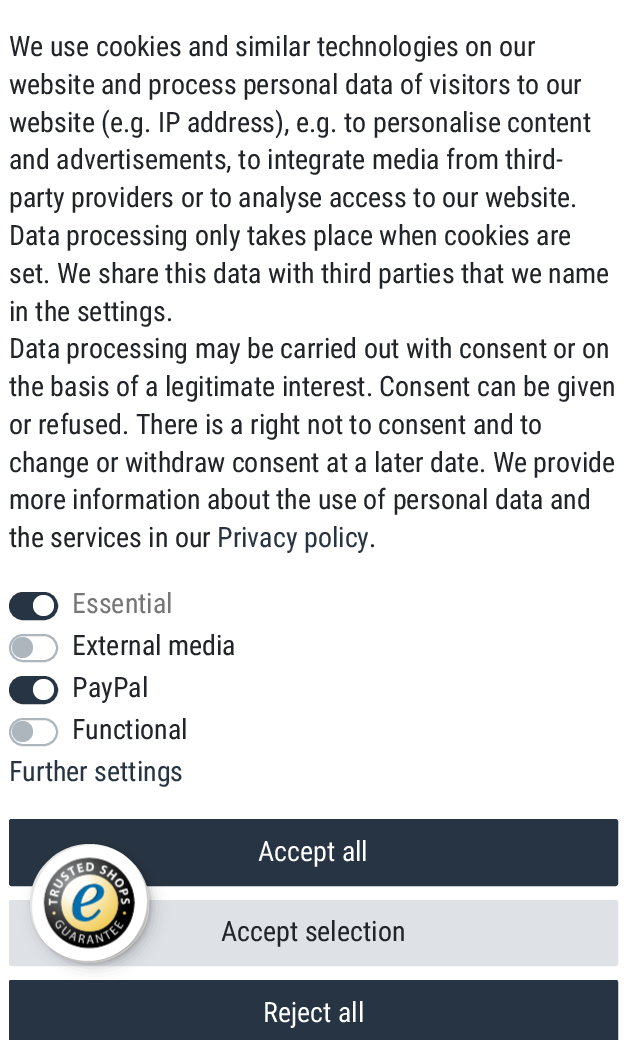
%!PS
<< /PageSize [625 1040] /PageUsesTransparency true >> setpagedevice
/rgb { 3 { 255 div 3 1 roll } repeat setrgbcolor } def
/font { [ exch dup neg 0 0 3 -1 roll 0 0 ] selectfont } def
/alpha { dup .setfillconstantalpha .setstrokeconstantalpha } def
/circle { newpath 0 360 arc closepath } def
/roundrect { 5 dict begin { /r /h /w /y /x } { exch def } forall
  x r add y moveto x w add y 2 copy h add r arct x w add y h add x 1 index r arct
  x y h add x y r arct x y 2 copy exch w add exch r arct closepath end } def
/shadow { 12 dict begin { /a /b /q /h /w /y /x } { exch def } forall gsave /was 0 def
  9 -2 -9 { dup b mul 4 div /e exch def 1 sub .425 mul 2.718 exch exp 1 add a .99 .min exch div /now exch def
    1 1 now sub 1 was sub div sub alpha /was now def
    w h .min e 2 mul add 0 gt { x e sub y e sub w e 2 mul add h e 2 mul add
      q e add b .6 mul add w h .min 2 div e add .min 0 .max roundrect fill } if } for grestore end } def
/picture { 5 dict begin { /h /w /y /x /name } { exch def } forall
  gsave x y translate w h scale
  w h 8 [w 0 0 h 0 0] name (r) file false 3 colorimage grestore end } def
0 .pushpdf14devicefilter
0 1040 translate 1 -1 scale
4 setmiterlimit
255 255 255 rgb
0 0 625 1040 rectfill
39 52 67 rgb
10 593 47 26 13 roundrect gsave fill grestore
2 setlinewidth
stroke
255 255 255 rgb
43.5 605.5 10.5 circle fill
173 181 189 rgb
10 635 47 26 13 roundrect stroke
22.5 647.5 10.5 circle fill
39 52 67 rgb
10 677 47 26 13 roundrect gsave fill grestore
stroke
255 255 255 rgb
43.5 689.5 10.5 circle fill
173 181 189 rgb
10 719 47 26 13 roundrect stroke
22.5 731.5 10.5 circle fill
39 52 67 rgb
10 820 607 65 1.5 roundrect gsave fill grestore
stroke
222 226 230 rgb
10 901 607 64 1.5 roundrect gsave fill grestore
stroke
39 52 67 rgb
11.5 980 moveto 615.5 980 lineto 617 980 618 981 618 982.5 curveto 618 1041 lineto 9 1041 lineto 9 982.5 lineto 9 981 10 980 11.5 980 curveto closepath fill
10 981 607 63 1.5 roundrect stroke
0 0 0 rgb
35 849 119 119 59.5 7 0.15 shadow
32 845 119 119 59.5 2 0.15 shadow
255 255 255 rgb
89.5 903.5 59.5 circle fill
0.1 alpha
0 0 0 rgb
91 845 moveto 106 845 119 850 129 859 curveto 102 835 60 840 40 870 curveto 22 897 29 933 54 952 curveto 11 918 35 845 91 845 curveto closepath fill
0.2 alpha
43 940 moveto 64 968 106 971 132 946 curveto 154 923 154 886 133 863 curveto 169 905 131 972 75 960 curveto 62 957 51 950 43 940 curveto closepath fill
50 50 50 rgb
41 939 moveto 60 964 96 971 123 953 curveto 150 934 157 897 139 870 curveto 156 897 149 933 121 951 curveto 96 968 60 963 41 939 curveto closepath fill
0.3 alpha
255 255 255 rgb
41 938 moveto 60 964 96 971 123 953 curveto 153 933 158 891 134 864 curveto 142 873 147 885 148 897 curveto 153 957 77 985 41 938 curveto closepath fill
1 alpha
(img/1.rgb) 43 857 92 92 picture
/RobotoCondensed-Regular 28 font
33 37 41 rgb
[
  [(We use cookies and similar technologies on our) 9 56]
  [(website and process personal data of visitors to our) 9 94]
  [(website \(e.g. IP address\), e.g. to personalise content) 9 132]
  [(and advertisements, to integrate media from third-) 9 169]
  [(party providers or to analyse access to our website.) 9 207]
  [(Data processing only takes place when cookies are) 9 245]
  [(set. We share this data with third parties that we name) 9 283]
  [(in the settings.) 9 321]
  [(Data processing may be carried out with consent or on) 9 358]
  [(the basis of a legitimate interest. Consent can be given) 9 396]
  [(or refused. There is a right not to consent and to) 9 434]
  [(change or withdraw consent at a later date. We provide) 9 472]
  [(more information about the use of personal data and) 9 509]
  [(the services in our) 9 547]
] { aload pop moveto show } forall
39 52 67 rgb
217 547 moveto (Privacy policy) show
33 37 41 rgb
369 547 moveto (.) show
118 118 118 rgb
72 613 moveto (Essential) show
33 37 41 rgb
[
  [(External media) 72 655]
  [(PayPal) 72 697]
  [(Functional) 72 739]
] { aload pop moveto show } forall
39 52 67 rgb
9 781 moveto (Further settings) show
255 255 255 rgb
258 861 moveto (Accept all) show
33 37 41 rgb
221 941 moveto (Accept selection) show
255 255 255 rgb
263 1022 moveto (Reject all) show
.poppdf14devicefilter showpage
